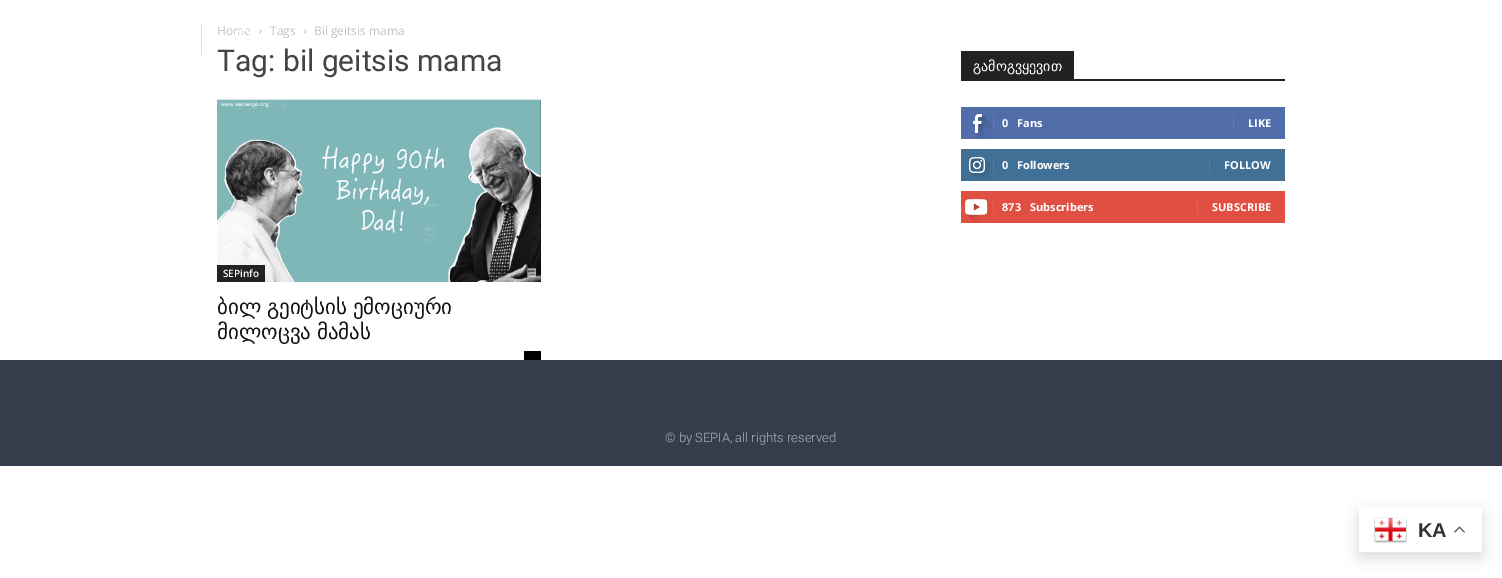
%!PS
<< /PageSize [1502 578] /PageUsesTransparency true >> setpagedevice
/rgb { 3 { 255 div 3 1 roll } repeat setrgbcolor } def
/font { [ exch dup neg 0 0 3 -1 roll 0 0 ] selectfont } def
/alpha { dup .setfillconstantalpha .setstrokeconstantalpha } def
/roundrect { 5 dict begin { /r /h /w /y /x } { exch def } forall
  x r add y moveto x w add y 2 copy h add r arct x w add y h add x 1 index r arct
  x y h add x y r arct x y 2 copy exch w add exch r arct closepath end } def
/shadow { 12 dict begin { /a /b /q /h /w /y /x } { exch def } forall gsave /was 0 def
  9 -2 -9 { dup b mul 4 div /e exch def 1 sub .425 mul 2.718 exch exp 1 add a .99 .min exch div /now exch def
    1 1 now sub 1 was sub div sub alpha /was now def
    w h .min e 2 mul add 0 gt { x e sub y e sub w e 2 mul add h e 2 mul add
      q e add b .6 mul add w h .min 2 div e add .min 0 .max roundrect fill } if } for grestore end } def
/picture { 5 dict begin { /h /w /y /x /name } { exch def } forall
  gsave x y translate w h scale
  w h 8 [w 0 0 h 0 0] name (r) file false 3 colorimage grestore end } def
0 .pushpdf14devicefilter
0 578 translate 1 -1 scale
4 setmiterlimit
255 255 255 rgb
0 0 1502 578 rectfill
224 224 224 rgb
201 24 1 31 rectfill
(img/2.rgb) 259 29 3 5 picture
(img/2.rgb) 304 29 3 5 picture
(img/3.rgb) 217 99 324 183 picture
[
  [217 265 48 17 34 34 34]
  [524 351 17 9 0 0 0]
  [961 79 324 2 34 34 34]
  [961 51 113 28 34 34 34]
  [961 107 324 32 81 110 171]
] { aload pop rgb rectfill } forall
(img/4.rgb) 973 114 20 25 picture
[
  [993 115 1 16 98 125 179]
  [1233 115 1 16 98 125 179]
  [961 149 324 32 65 112 150]
] { aload pop rgb rectfill } forall
(img/5.rgb) 969 157 23 23 picture
[
  [993 157 1 16 84 126 161]
  [1209 157 1 16 84 126 161]
  [961 191 324 32 225 78 66]
] { aload pop rgb rectfill } forall
(img/6.rgb) 965 199 27 24 picture
[
  [993 199 1 16 228 96 85]
  [1197 199 1 16 228 96 85]
  [0 360 1502 106 53 61 76]
] { aload pop rgb rectfill } forall
0 0 0 rgb
1359 512 123 45 2 7.5 0.15 shadow
255 255 255 rgb
1359 507 123 45 2 roundrect fill
(img/7.rgb) 1374 517 33 26 picture
(img/8.rgb) 1454 526 11 7 picture
/OpenSans-Regular 12 font
195 195 195 rgb
217 35 moveto (Home) show
(img/1.rgb) 234 29 16 6 picture
270 35 moveto (Tags) show
314 35 moveto (Bil geitsis mama) show
/Roboto-Regular 30 font
68 68 68 rgb
217 71 moveto (Tag: bil geitsis mama) show
/OpenSans-SemiBold 10 font
255 255 255 rgb
223 277 moveto (SEPinfo) show
/DejaVuSans-Regular 21 font
17 17 17 rgb
217 314 moveto -1 0 32 (ბილ გეიტსის ემოციური) widthshow
217 339 moveto -1 0 32 (მილოცვა მამას) widthshow
/DejaVuSans-Regular 14 font
255 255 255 rgb
973 71 moveto (გამოგვყევით) show
/OpenSans-Bold 11 font
[
  [(0) 1002 127]
  [(Fans) 1017 127]
  [(LIKE) 1248 127]
  [(0) 1002 169]
  [(Followers) 1017 169]
  [(FOLLOW) 1224 169]
  [(873) 1002 211]
  [(Subscribers) 1030 211]
  [(SUBSCRIBE) 1212 211]
] { aload pop moveto show } forall
/Roboto-Light 13 font
174 177 183 rgb
665 442 moveto (© by SEPIA, all rights reserved) show
/LiberationSans-Bold 20 font
51 51 51 rgb
1418 537 moveto (KA) show
.poppdf14devicefilter showpage
